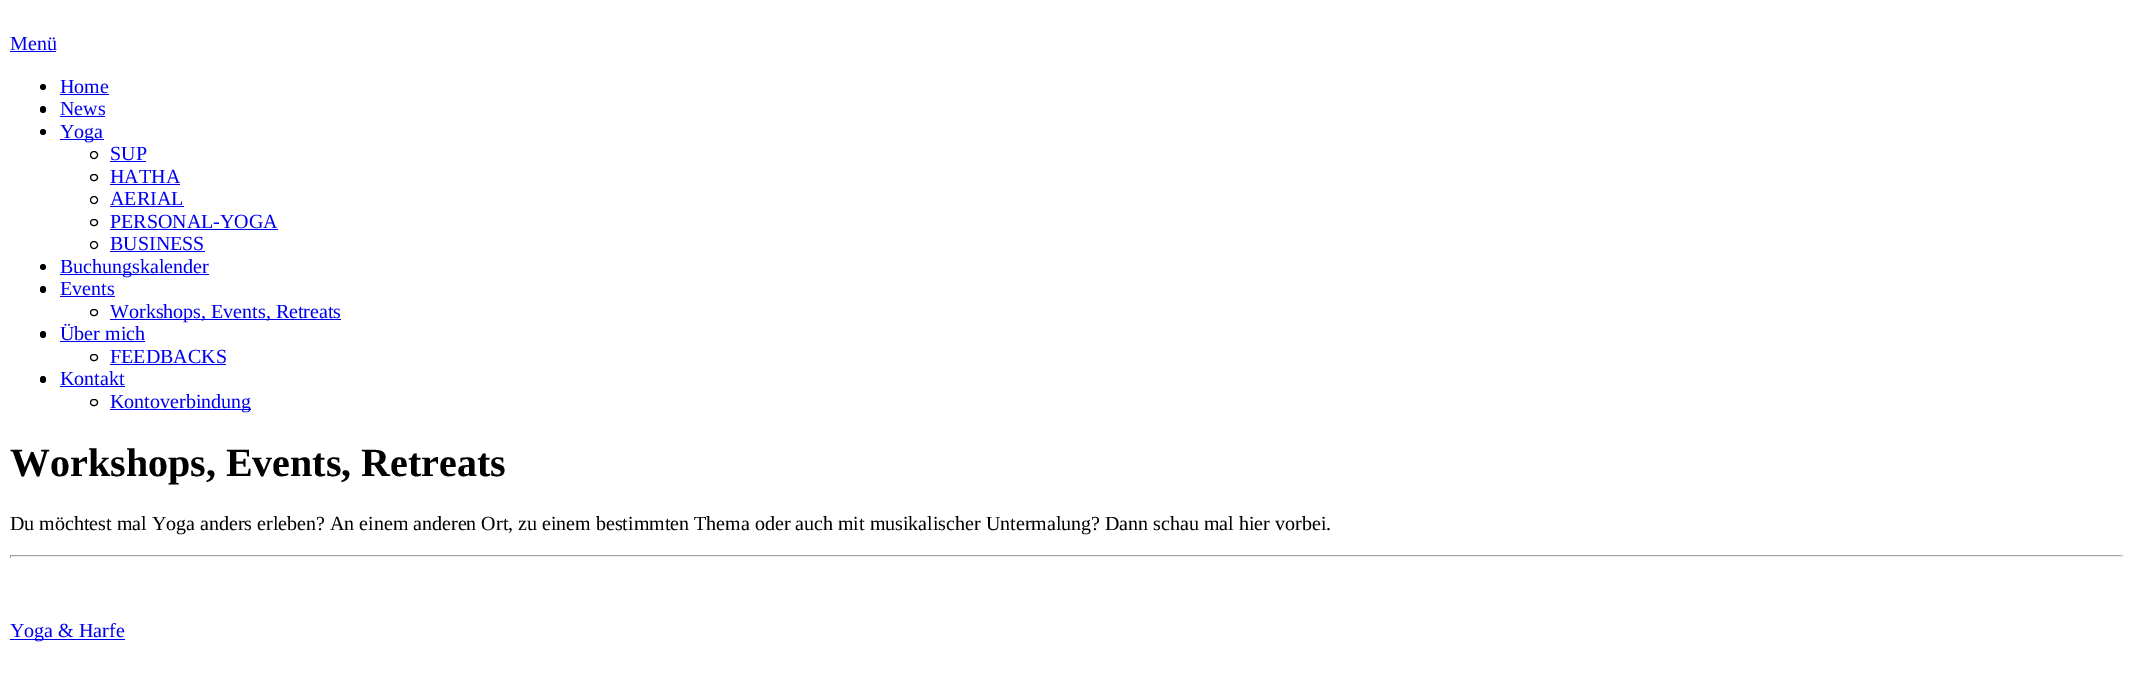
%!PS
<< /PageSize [2132 692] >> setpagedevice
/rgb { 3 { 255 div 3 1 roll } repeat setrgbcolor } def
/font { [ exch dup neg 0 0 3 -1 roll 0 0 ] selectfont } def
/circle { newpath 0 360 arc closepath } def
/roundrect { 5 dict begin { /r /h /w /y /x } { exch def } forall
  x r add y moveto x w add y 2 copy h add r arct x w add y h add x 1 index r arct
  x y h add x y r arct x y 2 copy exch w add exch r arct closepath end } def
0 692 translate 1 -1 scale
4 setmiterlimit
255 255 255 rgb
0 0 2132 692 rectfill
0 0 238 rgb
10 51 46 1 rectfill
0 0 0 rgb
43 87 3 circle fill
0 0 238 rgb
60 94 49 1 rectfill
0 0 0 rgb
40 106 6 7 3 roundrect fill
0 0 238 rgb
60 116 45 1 rectfill
0 0 0 rgb
43 132 3 circle fill
0 0 238 rgb
60 139 44 1 rectfill
0 0 0 rgb
94 155 3.5 circle stroke
0 0 238 rgb
110 161 36 1 rectfill
0 0 0 rgb
90.5 174.5 7 6 3 roundrect stroke
0 0 238 rgb
110 184 70 1 rectfill
0 0 0 rgb
94 200 3.5 circle stroke
0 0 238 rgb
110 206 74 1 rectfill
0 0 0 rgb
90.5 219.5 7 6 3 roundrect stroke
0 0 238 rgb
110 229 168 1 rectfill
0 0 0 rgb
94 245 3.5 circle stroke
0 0 238 rgb
110 251 95 1 rectfill
0 0 0 rgb
43 267 3 circle fill
0 0 238 rgb
60 274 149 1 rectfill
0 0 0 rgb
40 286 6 7 3 roundrect fill
0 0 238 rgb
60 296 55 1 rectfill
0 0 0 rgb
90.5 309.5 7 6 3 roundrect stroke
0 0 238 rgb
110 319 231 1 rectfill
0 0 0 rgb
40 331 6 7 3 roundrect fill
0 0 238 rgb
60 341 85 1 rectfill
0 0 0 rgb
90.5 354.5 7 6 3 roundrect stroke
0 0 238 rgb
110 364 116 1 rectfill
0 0 0 rgb
40 376 6 7 3 roundrect fill
0 0 238 rgb
60 386 65 1 rectfill
0 0 0 rgb
90.5 399.5 7 6 3 roundrect stroke
[
  [110 409 141 1 0 0 238]
  [10 555 2113 1 159 159 159]
  [2121 555 1 3 238 238 238]
  [10 556 2113 1 238 238 238]
  [10 555 1 3 159 159 159]
  [10 639 115 1 0 0 238]
] { aload pop rgb rectfill } forall
/LiberationSerif-Regular 20 font
[
  [(Menü) 10 50]
  [(Home) 60 93]
  [(News) 60 115]
  [(Yoga) 60 138]
  [(SUP) 110 160]
  [(HATHA) 110 183]
  [(AERIAL) 110 205]
  [(PERSONAL-YOGA) 110 228]
  [(BUSINESS) 110 250]
  [(Buchungskalender) 60 273]
  [(Events) 60 295]
  [(Workshops, Events, Retreats) 110 318]
  [(Über mich) 60 340]
  [(FEEDBACKS) 110 363]
  [(Kontakt) 60 385]
  [(Kontoverbindung) 110 408]
] { aload pop moveto show } forall
/LiberationSerif-Bold 40 font
0 0 0 rgb
10 476 moveto (Workshops, Events, Retreats) show
/LiberationSerif-Regular 20 font
10 530 moveto (Du möchtest mal Yoga anders erleben? An einem anderen Ort, zu einem bestimmten Thema oder auch mit musikalischer Untermalung? Dann schau mal hier vorbei.) show
0 0 238 rgb
10 637 moveto (Yoga & Harfe) show
showpage
